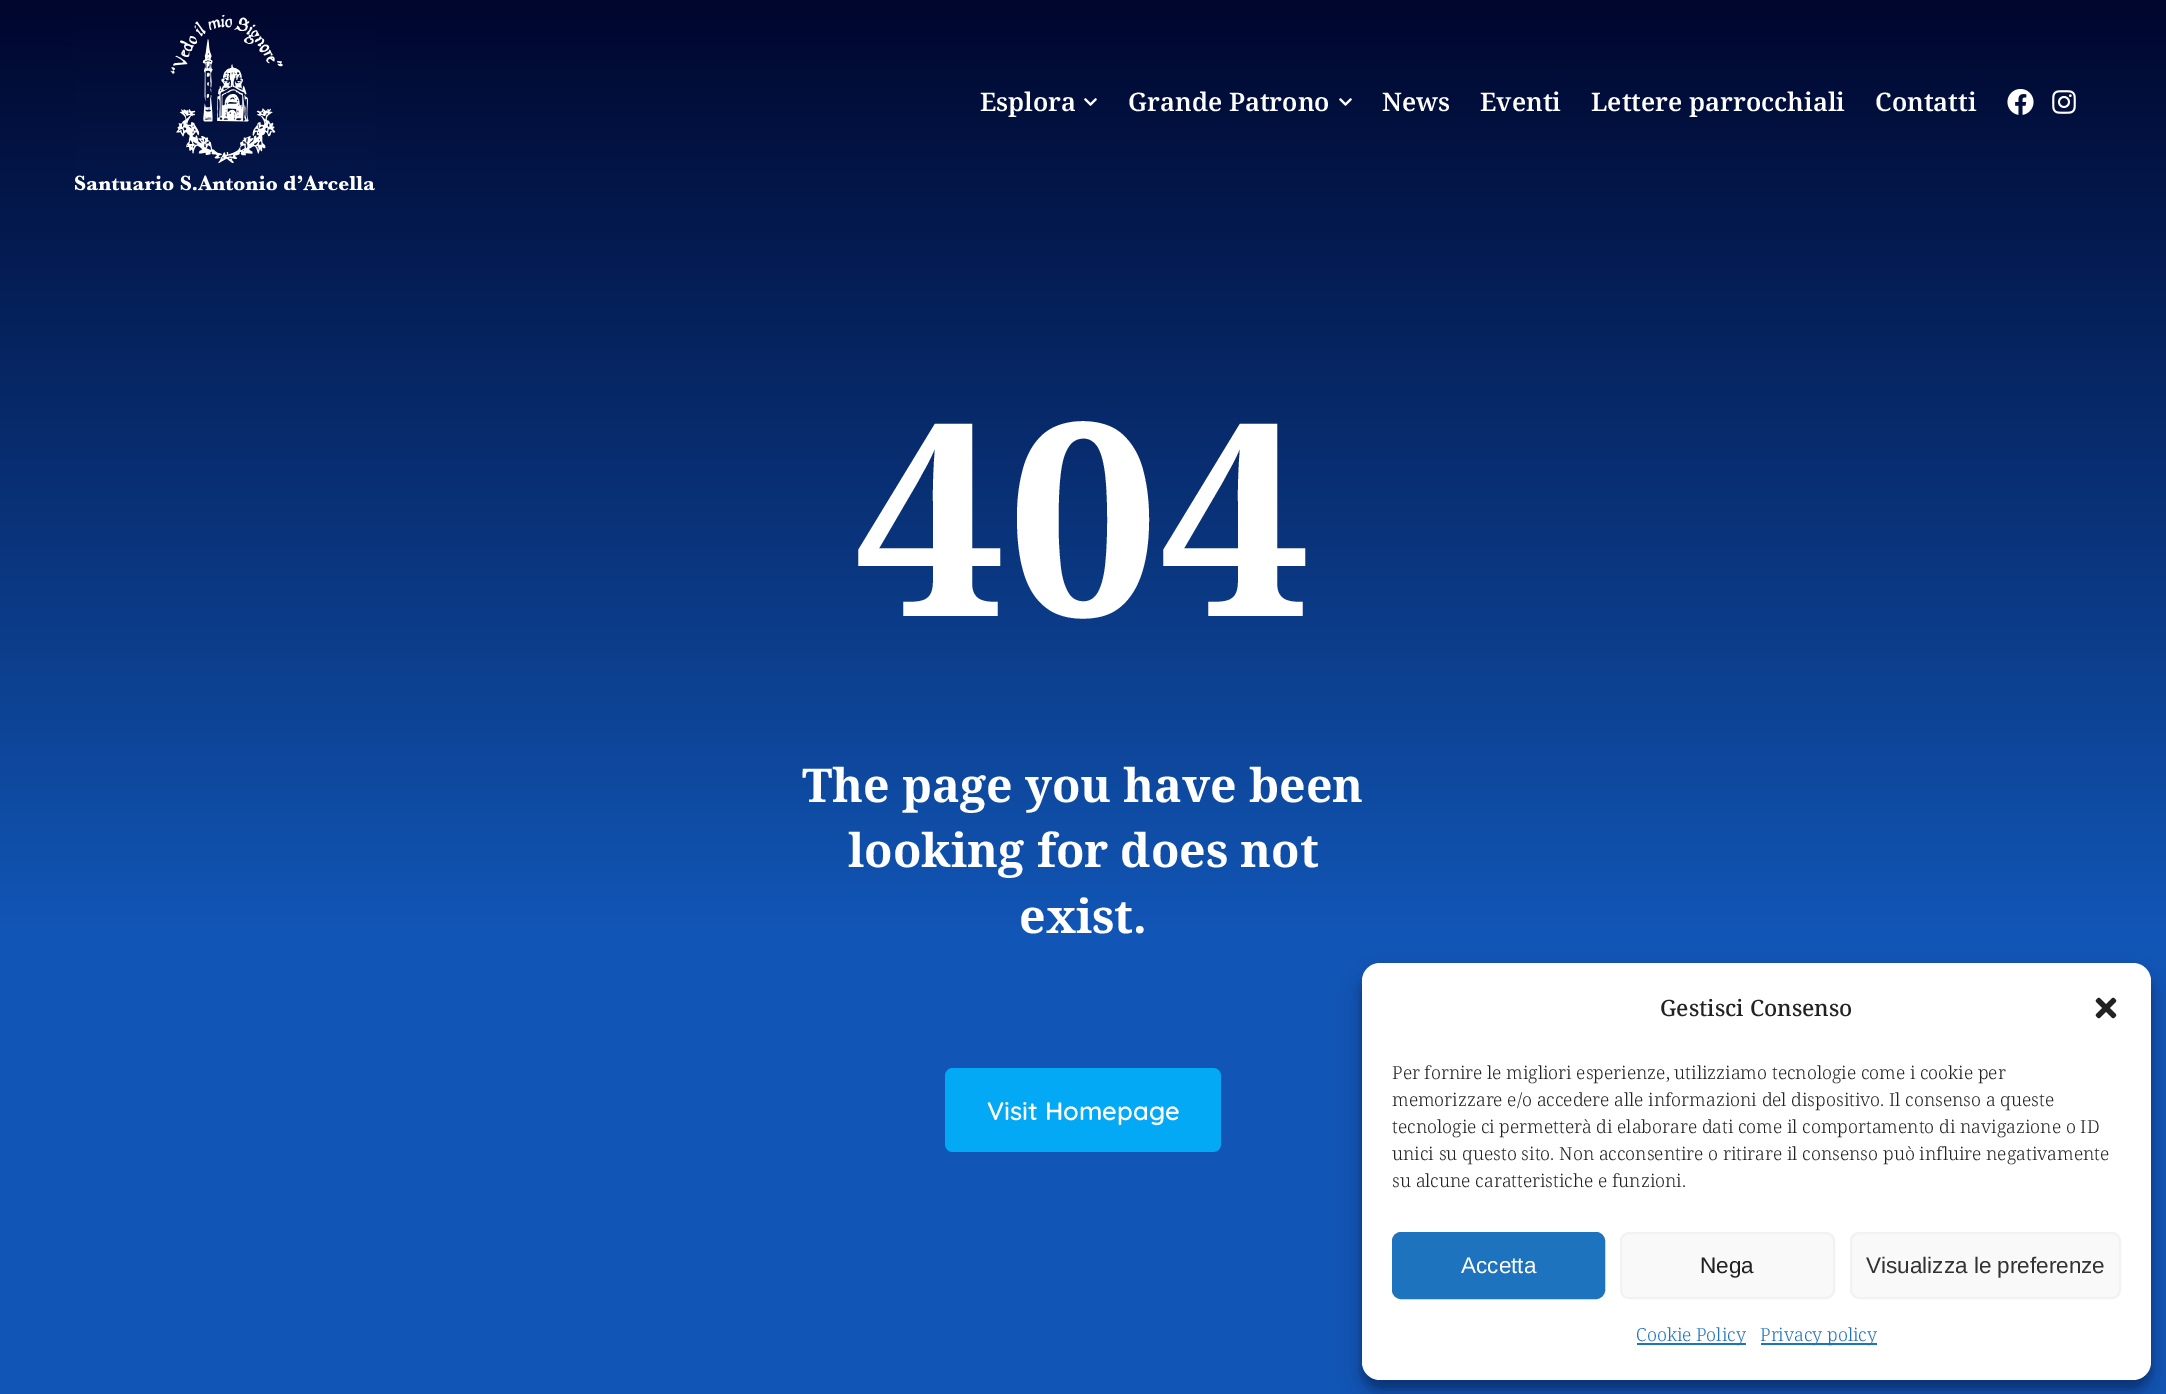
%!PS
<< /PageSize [2166 1394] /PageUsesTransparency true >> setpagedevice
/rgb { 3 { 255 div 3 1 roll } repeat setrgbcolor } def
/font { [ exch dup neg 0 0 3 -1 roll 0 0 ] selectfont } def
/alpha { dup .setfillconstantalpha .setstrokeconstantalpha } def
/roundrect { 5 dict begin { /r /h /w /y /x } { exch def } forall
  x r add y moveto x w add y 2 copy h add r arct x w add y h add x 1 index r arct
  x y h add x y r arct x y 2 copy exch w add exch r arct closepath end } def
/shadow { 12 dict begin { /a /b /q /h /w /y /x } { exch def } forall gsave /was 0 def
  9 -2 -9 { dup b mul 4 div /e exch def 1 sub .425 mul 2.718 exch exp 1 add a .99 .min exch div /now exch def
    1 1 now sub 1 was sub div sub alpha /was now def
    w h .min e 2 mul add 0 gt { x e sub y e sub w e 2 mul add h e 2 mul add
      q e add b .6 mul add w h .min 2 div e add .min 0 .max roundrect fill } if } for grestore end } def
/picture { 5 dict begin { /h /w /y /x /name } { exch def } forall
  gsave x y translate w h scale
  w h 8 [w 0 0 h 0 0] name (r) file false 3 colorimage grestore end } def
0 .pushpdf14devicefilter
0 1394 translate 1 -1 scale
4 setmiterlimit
255 255 255 rgb
0 0 2166 1394 rectfill
gsave 0 0 moveto 2166 0 lineto 2166 1394 lineto 0 1394 lineto closepath clip newpath
<< /ShadingType 2 /ColorSpace /DeviceRGB /Coords [1083 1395 1083 0] /Extend [true true] /Function << /FunctionType 3 /Domain [0 1] /Functions [<< /FunctionType 2 /Domain [0 1] /C0 [0.067 0.337 0.714] /C1 [0.067 0.337 0.714] /N 1 >> << /FunctionType 2 /Domain [0 1] /C0 [0.067 0.337 0.714] /C1 [0 0.024 0.176] /N 1 >>] /Bounds [0.33] /Encode [0 1 0 1] >> >> shfill grestore
(img/1.rgb) 75 15 300 176 picture
(img/2.rgb) 1084 98 13 8 picture
(img/2.rgb) 1339 98 13 8 picture
(img/3.rgb) 2007 89 27 26 picture
(img/4.rgb) 2052 90 24 24 picture
3 169 244 rgb
945 1068 276 84 8 roundrect fill
0 0 0 rgb
1362 972 789 417 18 4.5 0.23 shadow
1362 978 789 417 18 15 0.19 shadow
255 255 255 rgb
1362 963 789 417 18 roundrect fill
(img/5.rgb) 2095 997 22 22 picture
30 115 190 rgb
1393 1233 211 65 8 roundrect gsave fill grestore
2 setlinewidth
stroke
249 249 249 rgb
1621 1233 213 65 8 roundrect gsave fill grestore
242 242 242 rgb
stroke
249 249 249 rgb
1851 1233 269 65 8 roundrect gsave fill grestore
242 242 242 rgb
stroke
30 115 190 rgb
1637 1343 109 2 rectfill
1761 1343 116 2 rectfill
/NotoSerif-SemiBold 25.5 font
255 255 255 rgb
[
  [(Esplora) 980 111]
  [(Grande Patrono) 1128 111]
  [(News) 1382 111]
  [(Eventi) 1480 111]
  [(Lettere parrocchiali) 1591 111]
  [(Contatti) 1875 111]
] { aload pop moveto show } forall
/NotoSerif-Bold 270 font
854 616 moveto (404) show
/NotoSerif-Bold 46.5 font
[
  [(The page you have been) 802 802]
  [(looking for does not) 848 867]
  [(exist.) 1019 933]
] { aload pop moveto show } forall
/Quicksand-SemiBold 25.5 font
987 1120 moveto (Visit Homepage) show
/NotoSerif-Medium 22.5 font
34 34 34 rgb
1660 1016 moveto (Gestisci Consenso) show
/NotoSerif-Light 18 font
[
  [(Per fornire le migliori esperienze, utilizziamo tecnologie come i cookie per) 1392 1079]
  [(memorizzare e/o accedere alle informazioni del dispositivo. Il consenso a queste) 1392 1106]
  [(tecnologie ci permetterà di elaborare dati come il comportamento di navigazione o ID) 1392 1133]
  [(unici su questo sito. Non acconsentire o ritirare il consenso può influire negativamente) 1392 1160]
  [(su alcune caratteristiche e funzioni.) 1392 1187]
] { aload pop moveto show } forall
/LiberationSans-Regular 22.5 font
255 255 255 rgb
1461 1273 moveto (Accetta) show
34 34 34 rgb
1700 1273 moveto (Nega) show
51 51 51 rgb
1866 1273 moveto (Visualizza le preferenze) show
/NotoSerif-Light 18 font
30 115 190 rgb
1636 1341 moveto (Cookie Policy) show
1760 1341 moveto (Privacy policy) show
.poppdf14devicefilter showpage
